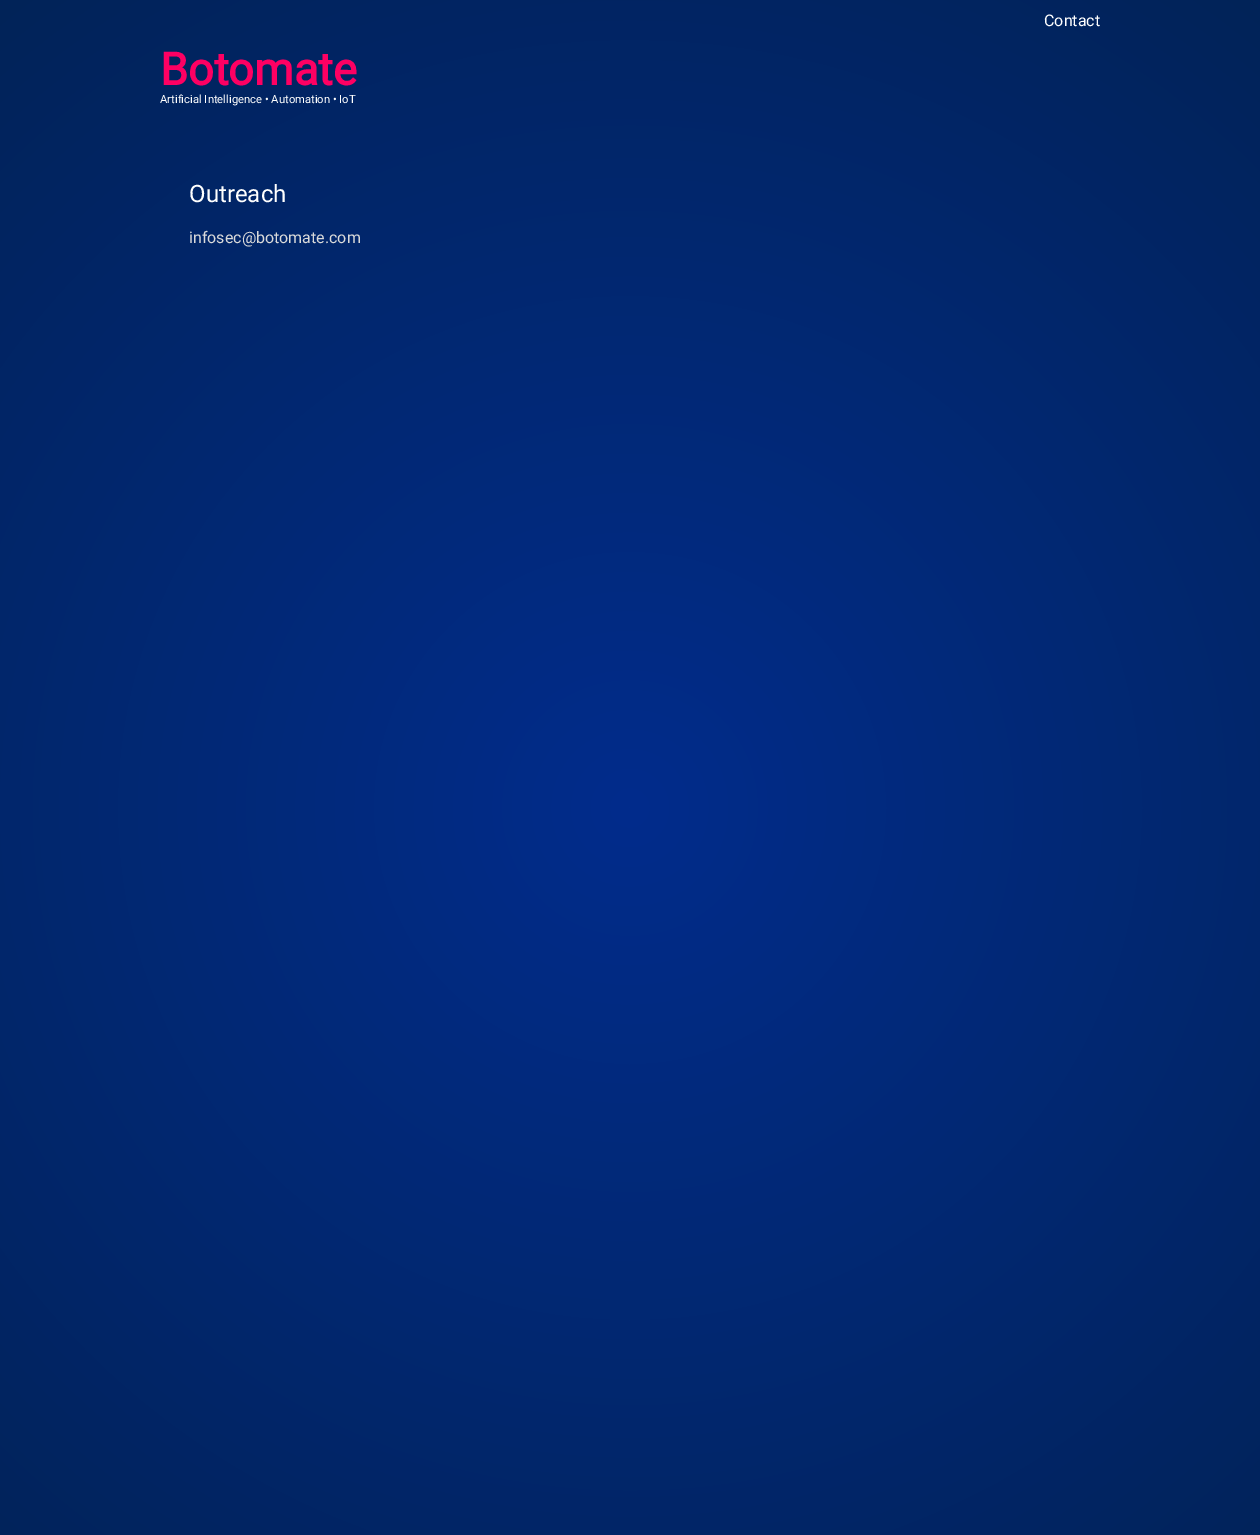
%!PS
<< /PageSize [1260 1535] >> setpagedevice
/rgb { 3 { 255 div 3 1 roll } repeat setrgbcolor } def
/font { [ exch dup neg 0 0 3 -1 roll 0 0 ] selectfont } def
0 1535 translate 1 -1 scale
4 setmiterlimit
255 255 255 rgb
0 0 1260 1535 rectfill
gsave 0 0 moveto 1260 0 lineto 1260 1535 lineto 0 1535 lineto closepath clip newpath 630 808 translate 1024 1024 scale
<< /ShadingType 3 /ColorSpace /DeviceRGB /Coords [0 0 0 0 0 1] /Extend [true true] /Function << /FunctionType 2 /Domain [0 1] /C0 [0.004 0.173 0.549] /C1 [0.004 0.137 0.345] /N 1 >> >> shfill grestore
/Roboto-Regular 16 font
1044 26 moveto (Contact) show
/Roboto-Bold 45 font
254 0 99 rgb
160 85 moveto (Botomate) show
/Roboto-Regular 11.25 font
255 255 255 rgb
160 103 moveto (Artificial Intelligence • Automation • IoT) show
/Roboto-Regular 24 font
189 202 moveto (Outreach) show
/Roboto-Regular 16 font
218 218 218 rgb
189 243 moveto (infosec@botomate.com) show
showpage
